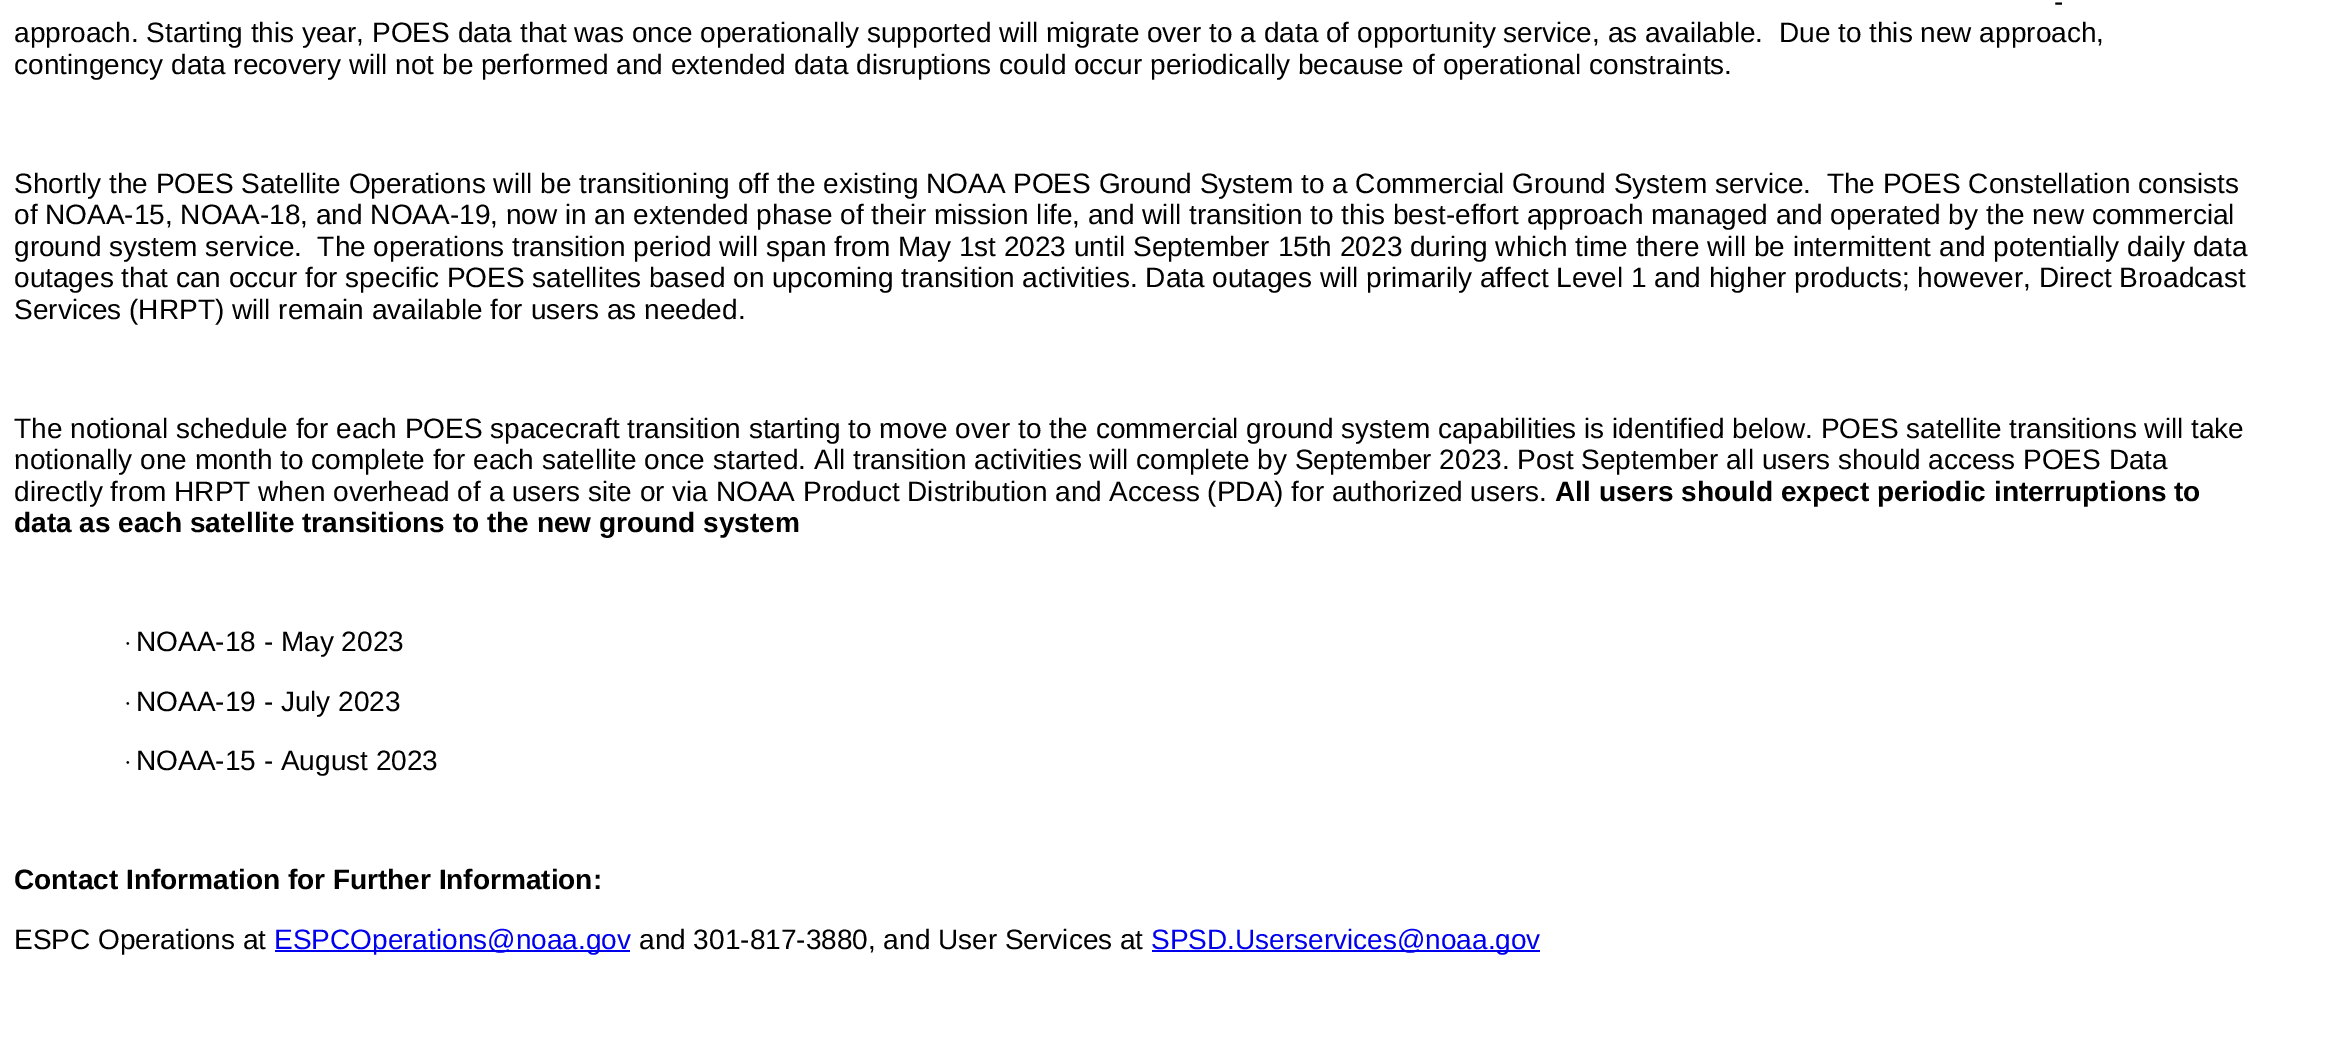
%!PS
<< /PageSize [2343 1061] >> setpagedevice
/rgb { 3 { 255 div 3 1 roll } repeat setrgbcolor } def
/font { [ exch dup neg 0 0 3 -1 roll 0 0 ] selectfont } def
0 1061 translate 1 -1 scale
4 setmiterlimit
255 255 255 rgb
0 0 2343 1061 rectfill
0 0 238 rgb
275 950 355 2 rectfill
1152 950 388 2 rectfill
/LiberationSans-Regular 28 font
0 0 0 rgb
[
  [(-) 2054 11]
  [(approach. Starting this year, POES data that was once operationally supported will migrate over to a data of opportunity service, as available.  Due to this new approach,) 14 42]
  [(contingency data recovery will not be performed and extended data disruptions could occur periodically because of operational constraints.) 14 74]
  [(Shortly the POES Satellite Operations will be transitioning off the existing NOAA POES Ground System to a Commercial Ground System service.  The POES Constellation consists) 14 193]
  [(of NOAA-15, NOAA-18, and NOAA-19, now in an extended phase of their mission life, and will transition to this best-effort approach managed and operated by the new commercial) 14 224]
  [(ground system service.  The operations transition period will span from May 1st 2023 until September 15th 2023 during which time there will be intermittent and potentially daily data) 14 256]
  [(outages that can occur for specific POES satellites based on upcoming transition activities. Data outages will primarily affect Level 1 and higher products; however, Direct Broadcast) 14 287]
  [(Services \(HRPT\) will remain available for users as needed.) 14 319]
  [(The notional schedule for each POES spacecraft transition starting to move over to the commercial ground system capabilities is identified below. POES satellite transitions will take) 14 438]
  [(notionally one month to complete for each satellite once started. All transition activities will complete by September 2023. Post September all users should access POES Data) 14 469]
  [(directly from HRPT when overhead of a users site or via NOAA Product Distribution and Access \(PDA\) for authorized users.) 14 501]
] { aload pop moveto show } forall
/LiberationSans-Bold 28 font
1555 501 moveto (All users should expect periodic interruptions to) show
14 532 moveto (data as each satellite transitions to the new ground system) show
/LiberationSerif-Regular 23 font
124 651 moveto (·) show
/LiberationSans-Regular 28 font
136 651 moveto (NOAA-18 - May 2023) show
/LiberationSerif-Regular 23 font
124 711 moveto (·) show
/LiberationSans-Regular 28 font
136 711 moveto (NOAA-19 - July 2023) show
/LiberationSerif-Regular 23 font
124 770 moveto (·) show
/LiberationSans-Regular 28 font
136 770 moveto (NOAA-15 - August 2023) show
/LiberationSans-Bold 28 font
14 889 moveto (Contact Information for Further Information:) show
/LiberationSans-Regular 28 font
14 949 moveto (ESPC Operations at) show
0 0 238 rgb
274 949 moveto (ESPCOperations@noaa.gov) show
0 0 0 rgb
639 949 moveto (and 301-817-3880, and User Services at) show
0 0 238 rgb
1151 949 moveto (SPSD.Userservices@noaa.gov) show
showpage
